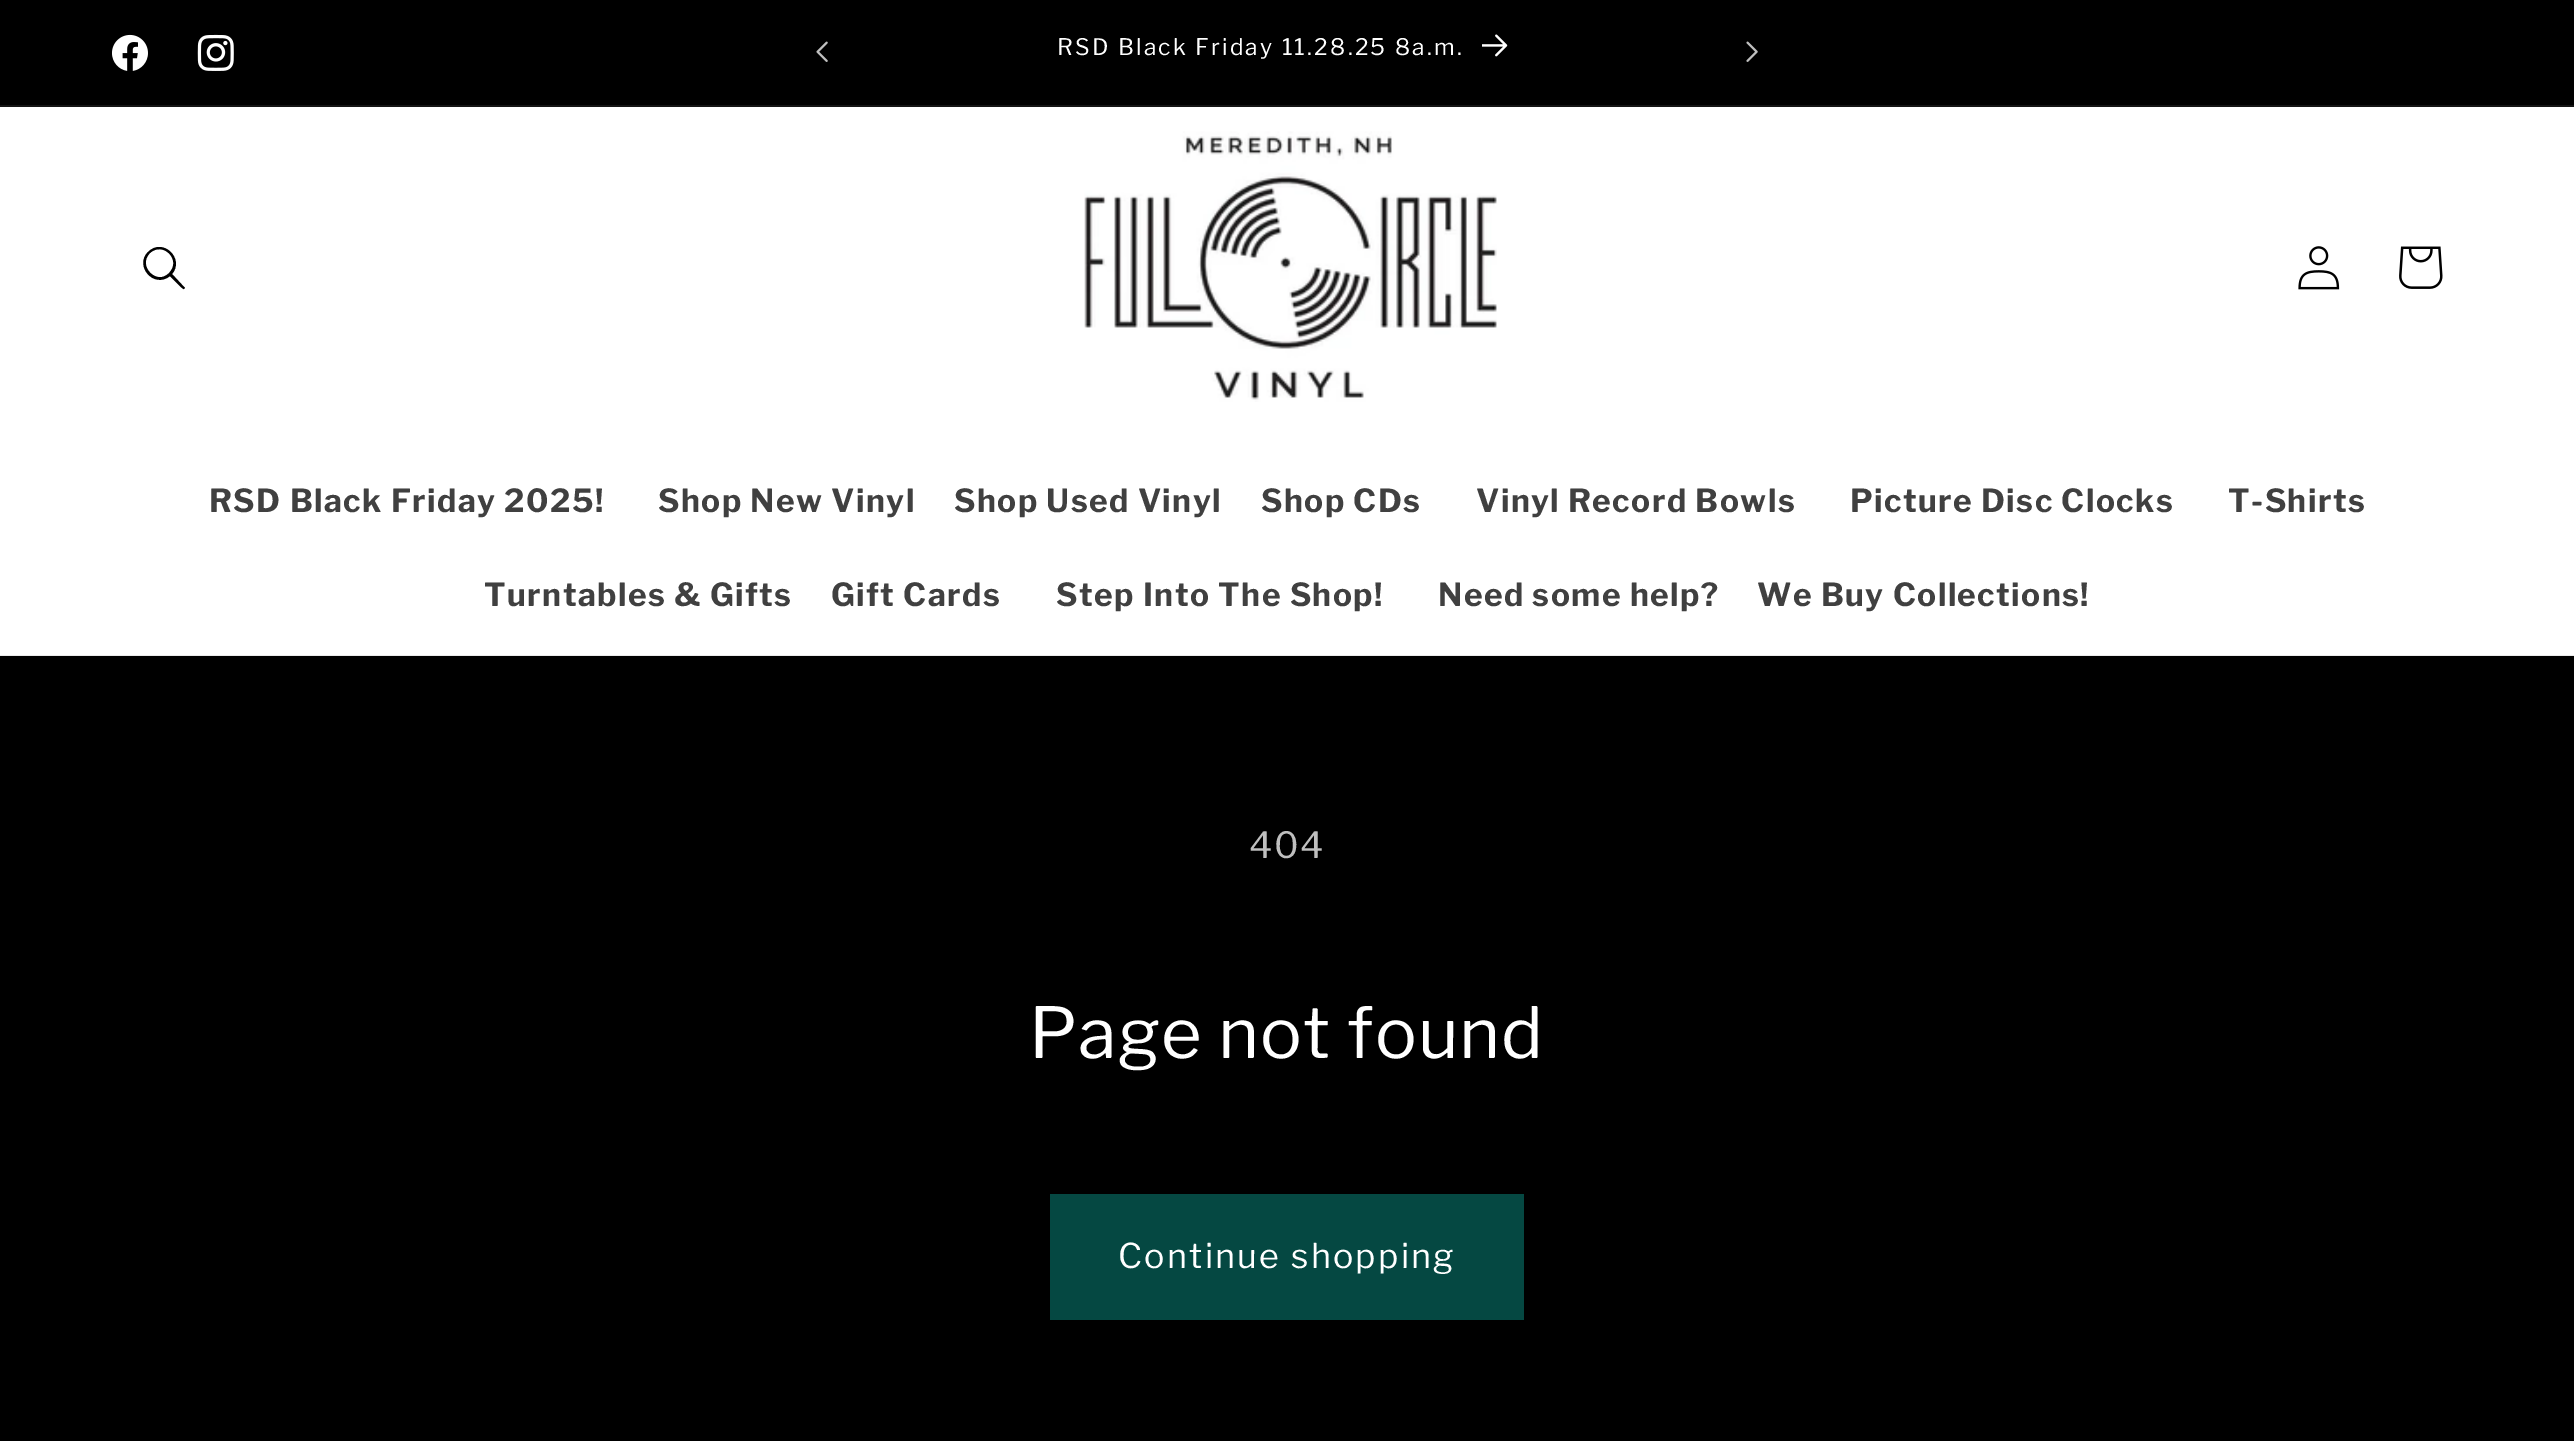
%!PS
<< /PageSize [2574 1441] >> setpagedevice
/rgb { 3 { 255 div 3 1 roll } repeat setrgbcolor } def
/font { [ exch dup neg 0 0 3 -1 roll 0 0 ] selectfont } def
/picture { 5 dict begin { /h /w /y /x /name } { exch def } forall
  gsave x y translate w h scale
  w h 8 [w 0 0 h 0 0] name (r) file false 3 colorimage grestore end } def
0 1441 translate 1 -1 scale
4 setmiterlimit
0 0 0 rgb
0 0 2574 1441 rectfill
20 20 20 rgb
0 105 2574 2 rectfill
(img/1.rgb) 112 34 36 37 picture
(img/2.rgb) 197 34 37 37 picture
(img/3.rgb) 816 41 12 21 picture
(img/4.rgb) 1482 34 26 23 picture
(img/5.rgb) 1746 41 12 21 picture
255 255 255 rgb
0 107 2574 548 rectfill
235 235 235 rgb
0 655 2574 1 rectfill
0 0 0 rgb
169 273 moveto 157 286 137 266 150 253 curveto 163 241 182 260 169 273 curveto closepath 170 276 moveto 154 289 134 266 148 252 curveto 163 237 185 259 172 274 curveto 185 288 lineto 184 289 lineto 183 290 172 278 170 276 curveto closepath eofill
(img/6.rgb) 1084 131 413 271 picture
(img/7.rgb) 2298 246 42 44 picture
(img/8.rgb) 2399 246 44 43 picture
5 72 66 rgb
1050 1194 474 126 rectfill
/LibreFranklin-Regular 22.75 font
255 255 255 rgb
1057 55 moveto 2.25 0 (RSD Black Friday 11.28.25 8a.m.) ashow
/LibreFranklin-Bold 31.8 font
64 64 64 rgb
209 512 moveto 1.4 0 (RSD Black Friday 2025!) ashow
658 512 moveto 1.4 0 (Shop New Vinyl) ashow
954 512 moveto 1.4 0 (Shop Used Vinyl) ashow
1261 512 moveto 1.4 0 (Shop CDs) ashow
1476 512 moveto 1.4 0 (Vinyl Record Bowls) ashow
1850 512 moveto 1.4 0 (Picture Disc Clocks) ashow
2228 512 moveto 1.4 0 (T-Shirts) ashow
484 606 moveto 1.4 0 (Turntables & Gifts) ashow
831 606 moveto 1.4 0 (Gift Cards) ashow
1056 606 moveto 1.4 0 (Step Into The Shop!) ashow
1438 606 moveto 1.4 0 (Need some help?) ashow
1757 606 moveto 1.4 0 (We Buy Collections!) ashow
/LibreFranklin-Regular 36 font
191 191 191 rgb
1249 858 moveto 1.4 0 (404) ashow
/LibreFranklin-Regular 70 font
255 255 255 rgb
1029 1058 moveto 1 0 (Page not found) ashow
/LibreFranklin-Regular 34.1 font
1118 1268 moveto 2.25 0 (Continue shopping) ashow
showpage
